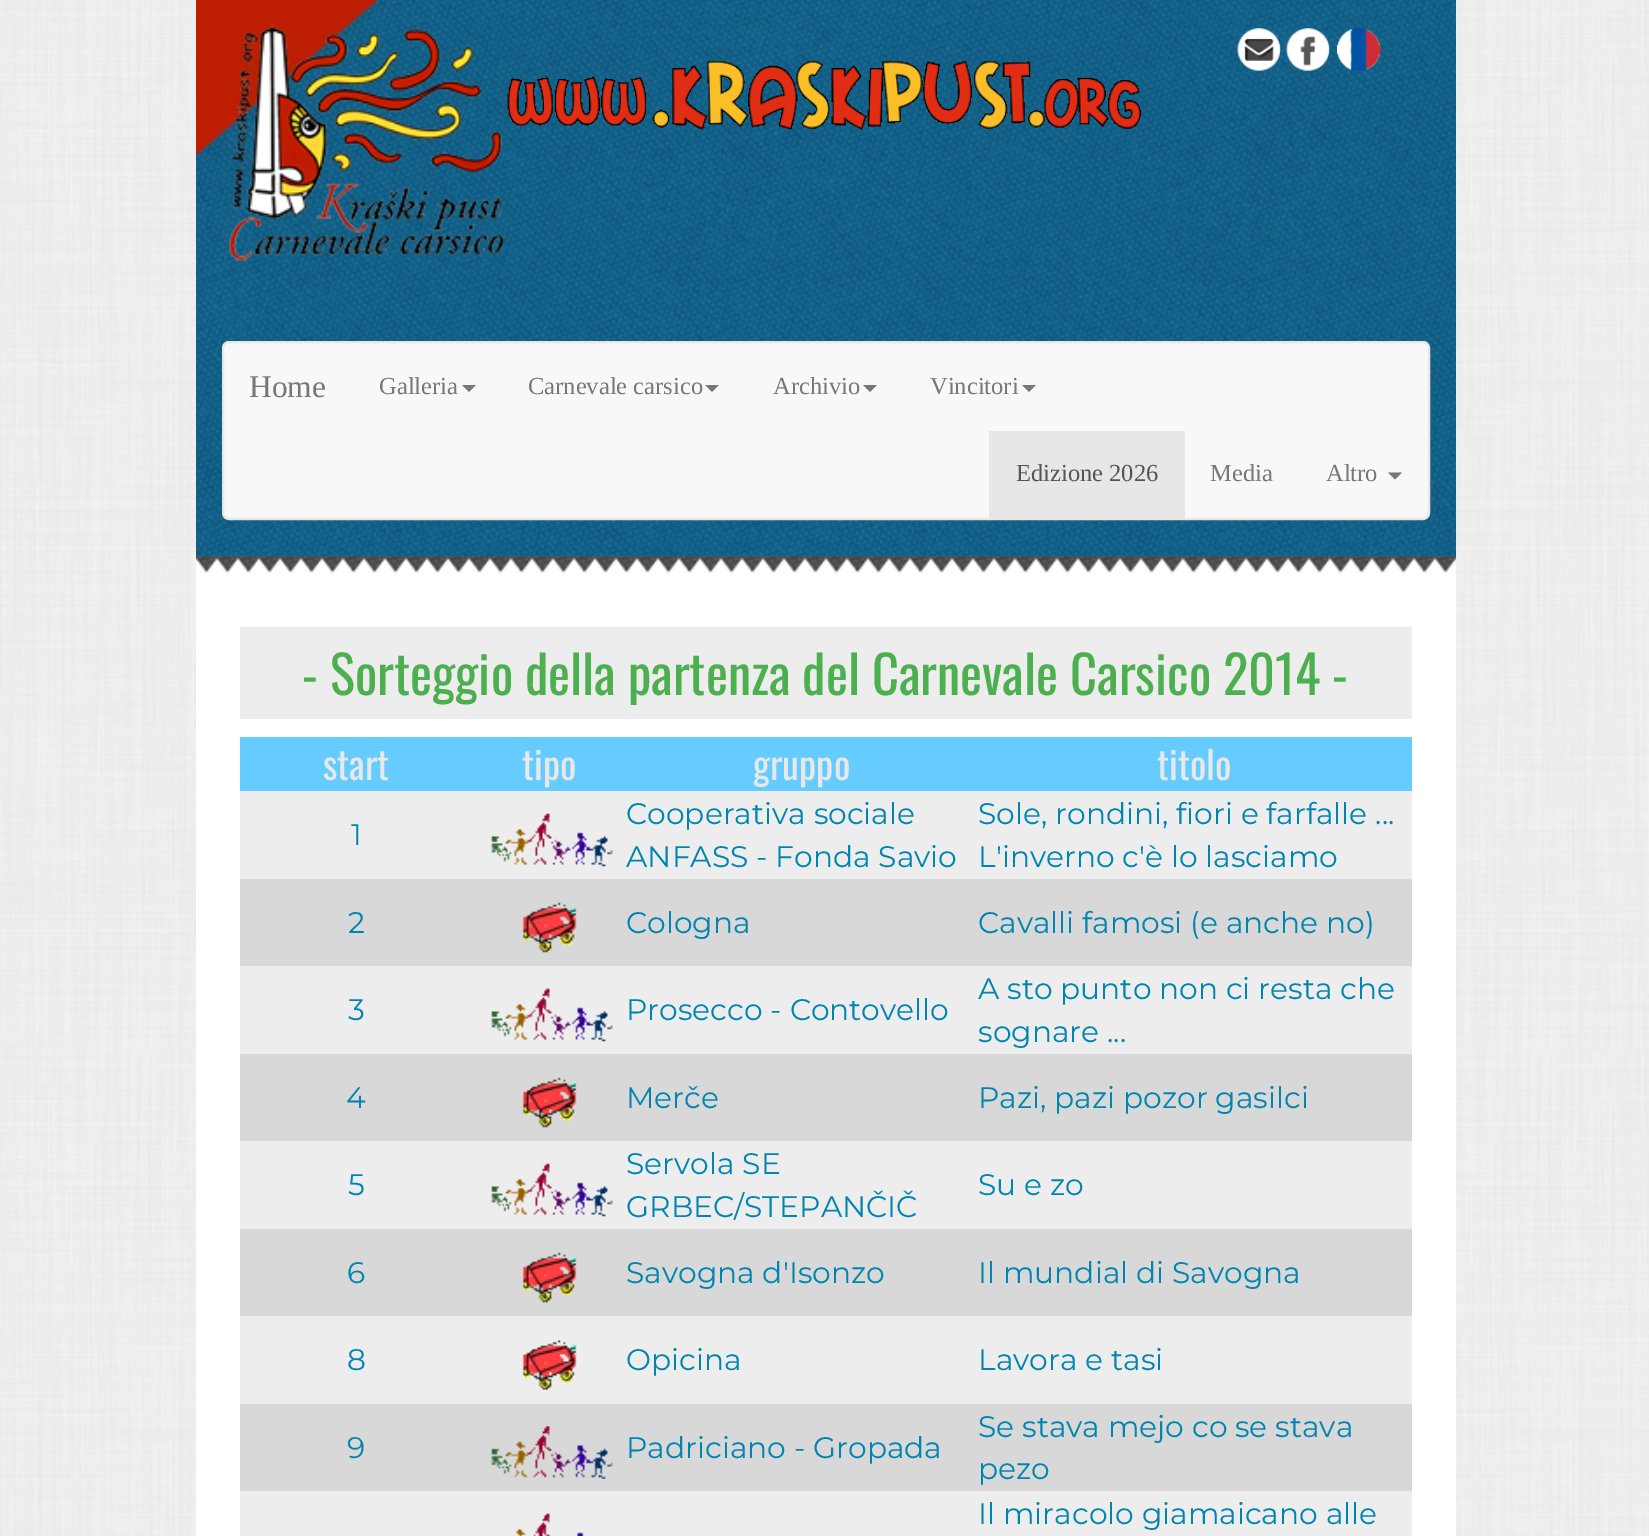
%!PS
<< /PageSize [1649 1536] >> setpagedevice
/rgb { 3 { 255 div 3 1 roll } repeat setrgbcolor } def
/font { [ exch dup neg 0 0 3 -1 roll 0 0 ] selectfont } def
/roundrect { 5 dict begin { /r /h /w /y /x } { exch def } forall
  x r add y moveto x w add y 2 copy h add r arct x w add y h add x 1 index r arct
  x y h add x y r arct x y 2 copy exch w add exch r arct closepath end } def
/picture { 5 dict begin { /h /w /y /x /name } { exch def } forall
  gsave x y translate w h scale
  w h 8 [w 0 0 h 0 0] name (r) file false 3 colorimage grestore end } def
0 1536 translate 1 -1 scale
4 setmiterlimit
255 255 255 rgb
0 0 1649 1536 rectfill
(img/1.rgb) 0 0 1649 1536 picture
(img/2.rgb) 196 0 1260 557 picture
(img/3.rgb) 196 0 190 156 picture
(img/4.rgb) 228 24 277 238 picture
(img/5.rgb) 1237 28 44 43 picture
(img/6.rgb) 1286 28 44 43 picture
(img/7.rgb) 1337 28 44 43 picture
(img/8.rgb) 507 61 635 69 picture
248 248 248 rgb
223 342 1206 177 6 roundrect gsave fill grestore
231 231 231 rgb
2 setlinewidth
stroke
119 119 119 rgb
462 385 moveto 476 385 lineto 469 392 lineto closepath fill
705 385 moveto 719 385 lineto 712 392 lineto closepath fill
863 385 moveto 877 385 lineto 870 392 lineto closepath fill
1022 385 moveto 1036 385 lineto 1029 392 lineto closepath fill
231 231 231 rgb
989 431 196 87 rectfill
119 119 119 rgb
1388 472.5 moveto 1402 472.5 lineto 1395 479.5 lineto closepath fill
255 255 255 rgb
196 557 1260 979 rectfill
(img/9.rgb) 196 556 1260 17 picture
[
  [240 627 1172 92 238 237 237]
  [240 737 1172 54 102 204 255]
  [240 791 1172 88 237 237 237]
] { aload pop rgb rectfill } forall
(img/10.rgb) 491 813 122 54 picture
216 216 216 rgb
240 879 1172 87 rectfill
(img/11.rgb) 522 902 55 51 picture
237 237 237 rgb
240 966 1172 88 rectfill
(img/10.rgb) 491 988 122 54 picture
216 216 216 rgb
240 1054 1172 87 rectfill
(img/11.rgb) 522 1077 55 51 picture
237 237 237 rgb
240 1141 1172 88 rectfill
(img/10.rgb) 491 1163 122 54 picture
216 216 216 rgb
240 1229 1172 87 rectfill
(img/11.rgb) 522 1252 55 51 picture
237 237 237 rgb
240 1316 1172 88 rectfill
(img/12.rgb) 522 1340 55 50 picture
216 216 216 rgb
240 1404 1172 87 rectfill
(img/13.rgb) 491 1426 122 53 picture
237 237 237 rgb
240 1491 1172 45 rectfill
(img/14.rgb) 515 1513 69 23 picture
/LiberationSerif-Regular 31.5 font
119 119 119 rgb
249 397 moveto (Home) show
/LiberationSerif-Regular 24.5 font
[
  [(Galleria) 379 394]
  [(Carnevale carsico) 528 394]
  [(Archivio) 773 394]
  [(Vincitori) 930 394]
] { aload pop moveto show } forall
85 85 85 rgb
1016 481 moveto (Edizione 2026) show
119 119 119 rgb
1210 481 moveto (Media) show
1326 481 moveto (Altro) show
/Oswald-Regular 52.5 font
76 175 80 rgb
302 695 moveto (- Sorteggio della partenza del Carnevale Carsico 2014 -) show
/Oswald-Regular 38.5 font
232 232 232 rgb
[
  [(start) 323 780]
  [(tipo) 522 780]
  [(gruppo) 753 780]
  [(titolo) 1157 780]
] { aload pop moveto show } forall
/Montserrat-Thin 29.75 font
0 133 176 rgb
[
  [(1) 351 845]
  [(Cooperativa sociale) 626 824]
  [(ANFASS - Fonda Savio) 626 867]
  [(Sole, rondini, fiori e farfalle ...) 978 824]
  [(L'inverno c'è lo lasciamo) 978 867]
  [(2) 348 933]
  [(Cologna) 626 933]
  [(Cavalli famosi \(e anche no\)) 978 933]
  [(3) 348 1020]
  [(Prosecco - Contovello) 626 1020]
  [(A sto punto non ci resta che) 978 999]
  [(sognare ...) 978 1042]
  [(4) 346 1108]
  [(Merče) 626 1108]
  [(Pazi, pazi pozor gasilci) 978 1108]
  [(5) 348 1195]
  [(Servola SE) 626 1174]
  [(GRBEC/STEPANČIČ) 626 1217]
  [(Su e zo) 978 1195]
  [(6) 347 1283]
  [(Savogna d'Isonzo) 626 1283]
  [(Il mundial di Savogna) 978 1283]
  [(8) 347 1370]
  [(Opicina) 626 1370]
  [(Lavora e tasi) 978 1370]
  [(9) 347 1458]
  [(Padriciano - Gropada) 626 1458]
  [(Se stava mejo co se stava) 978 1437]
  [(pezo) 978 1479]
  [(Il miracolo giamaicano alle) 978 1524]
] { aload pop moveto show } forall
showpage
